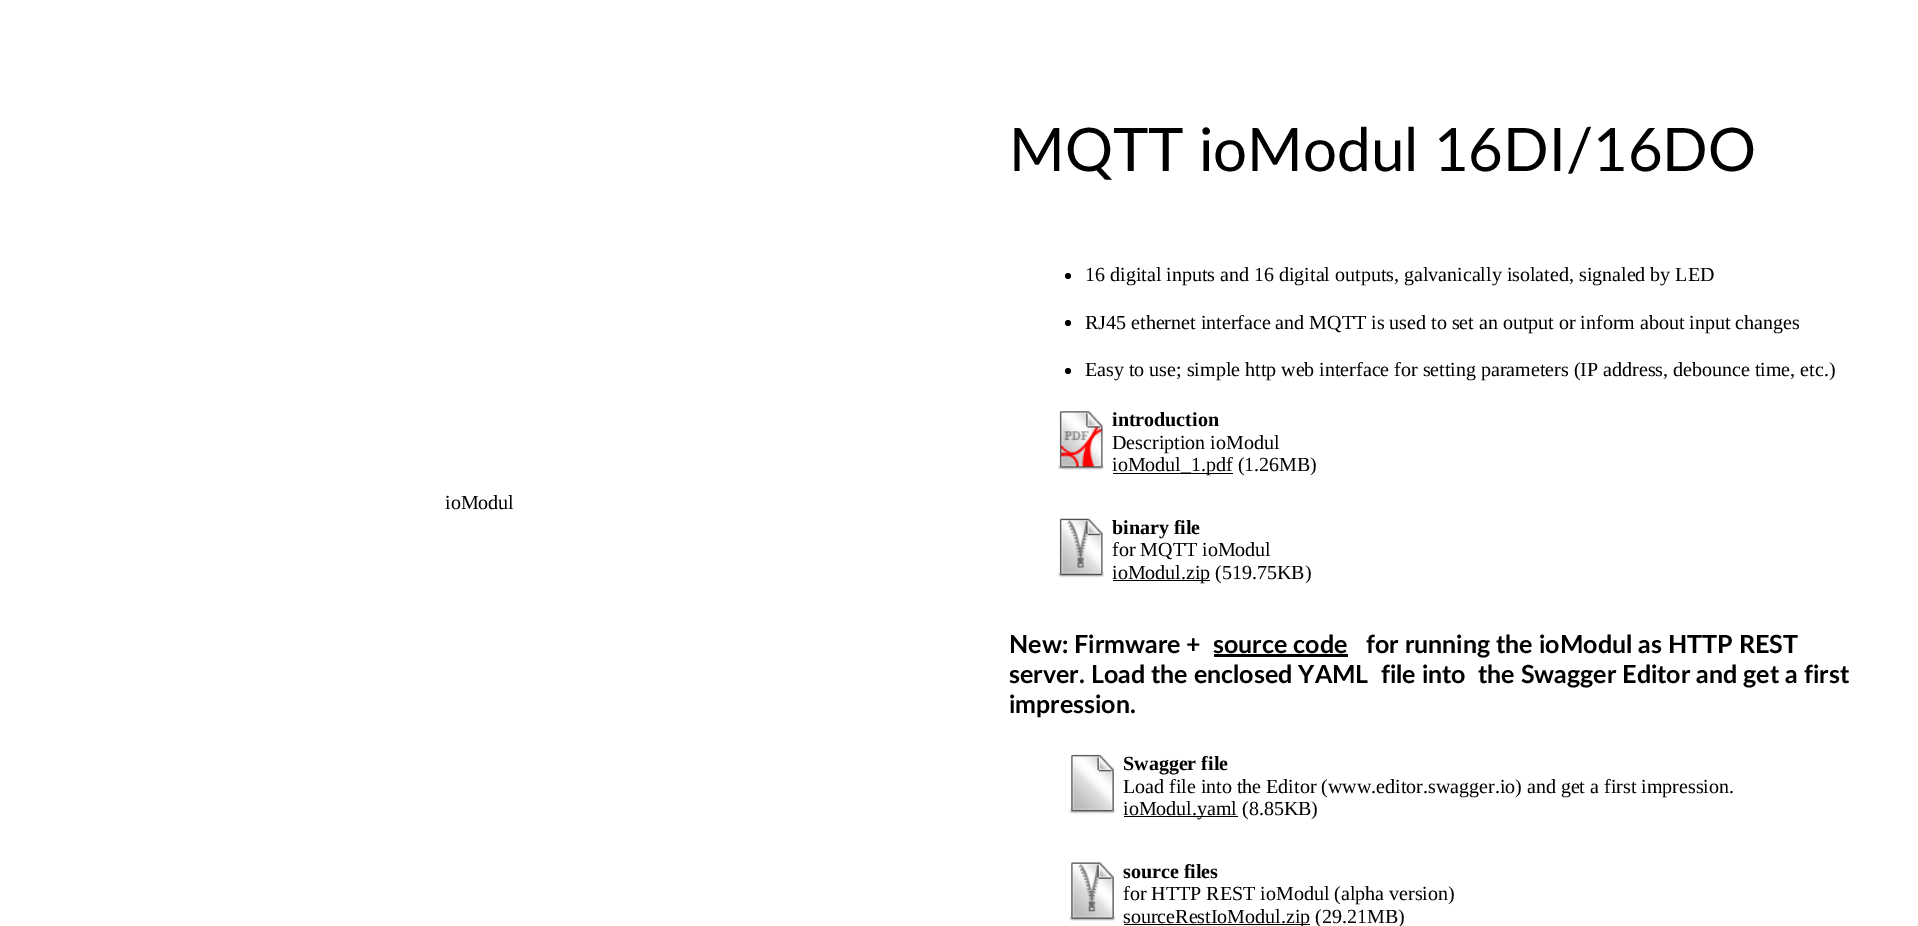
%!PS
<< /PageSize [1918 926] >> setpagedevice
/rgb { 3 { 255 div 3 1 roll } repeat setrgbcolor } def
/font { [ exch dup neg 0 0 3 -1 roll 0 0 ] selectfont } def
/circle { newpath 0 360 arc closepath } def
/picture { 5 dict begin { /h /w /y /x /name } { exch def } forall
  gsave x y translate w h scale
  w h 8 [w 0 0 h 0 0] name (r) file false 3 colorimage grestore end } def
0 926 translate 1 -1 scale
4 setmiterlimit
255 255 255 rgb
0 0 1918 926 rectfill
0 0 0 rgb
1068 276 3 circle fill
1068 323 3 circle fill
1068 371 3 circle fill
(img/1.rgb) 1058 411 46 59 picture
1113 473 120 1 rectfill
(img/2.rgb) 1058 518 46 60 picture
1113 580 97 1 rectfill
1214 654 134 3 rectfill
(img/3.rgb) 1069 754 47 60 picture
1124 816 114 1 rectfill
(img/4.rgb) 1069 862 47 59 picture
1124 924 186 1 rectfill
/LiberationSerif-Regular 20 font
445 509 moveto (ioModul) show
/Lato-Regular 60 font
1009 171 moveto (MQTT ioModul 16DI/16DO) show
/LiberationSerif-Regular 20 font
[
  [(16 digital inputs and 16 digital outputs, galvanically isolated, signaled by LED) 1085 281]
  [(RJ45 ethernet interface and MQTT is used to set an output or inform about input changes) 1085 329]
  [(Easy to use; simple http web interface for setting parameters \(IP address, debounce time, etc.\)) 1085 376]
] { aload pop moveto show } forall
/LiberationSerif-Bold 20 font
1112 426 moveto (introduction) show
/LiberationSerif-Regular 20 font
1112 449 moveto (Description ioModul) show
1112 471 moveto (ioModul_1.pdf \(1.26MB\)) show
/LiberationSerif-Bold 20 font
1112 534 moveto (binary file) show
/LiberationSerif-Regular 20 font
1112 556 moveto (for MQTT ioModul) show
1112 579 moveto (ioModul.zip \(519.75KB\)) show
/Lato-Bold 25 font
[
  [(New: Firmware +) 1009 653]
  [(source code) 1213 653]
  [(for running the ioModul as HTTP REST) 1366 653]
  [(server. Load the enclosed YAML  file into  the Swagger Editor and get a first) 1009 683]
  [(impression.) 1009 713]
] { aload pop moveto show } forall
/LiberationSerif-Bold 20 font
1123 770 moveto (Swagger file) show
/LiberationSerif-Regular 20 font
1123 793 moveto (Load file into the Editor \(www.editor.swagger.io\) and get a first impression.) show
1123 815 moveto (ioModul.yaml \(8.85KB\)) show
/LiberationSerif-Bold 20 font
1123 878 moveto (source files) show
/LiberationSerif-Regular 20 font
1123 900 moveto (for HTTP REST ioModul \(alpha version\)) show
1123 923 moveto (sourceRestIoModul.zip \(29.21MB\)) show
showpage
